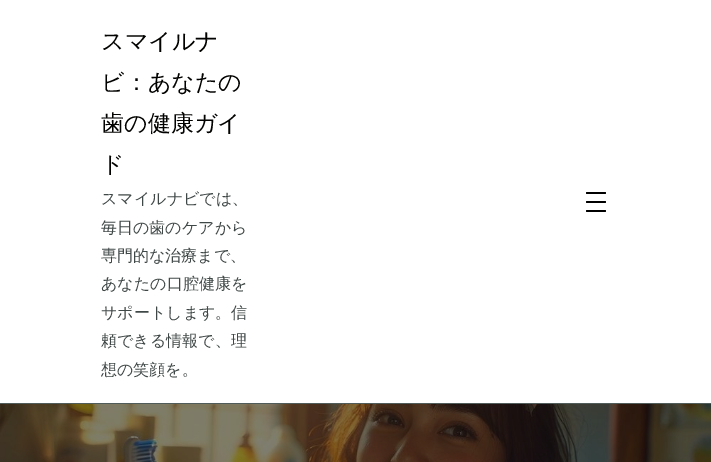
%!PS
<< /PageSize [711 462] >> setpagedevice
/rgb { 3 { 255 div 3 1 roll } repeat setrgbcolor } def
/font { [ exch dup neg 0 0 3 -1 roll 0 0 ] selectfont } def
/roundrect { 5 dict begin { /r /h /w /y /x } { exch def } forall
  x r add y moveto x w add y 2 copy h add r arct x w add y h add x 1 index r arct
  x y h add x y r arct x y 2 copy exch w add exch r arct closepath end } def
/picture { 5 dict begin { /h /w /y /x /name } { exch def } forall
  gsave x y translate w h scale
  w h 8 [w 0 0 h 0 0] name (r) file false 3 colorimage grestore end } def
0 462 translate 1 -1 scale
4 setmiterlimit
255 255 255 rgb
0 0 711 462 rectfill
80 92 90 rgb
0 403 711 1 rectfill
0 0 0 rgb
586 192 20 2 1 roundrect fill
586 201 20 2 1 roundrect fill
586 210 20 2 1 roundrect fill
(img/1.rgb) 0 404 711 58 picture
/WenQuanYiZenHei-Medium 23 font
2 2 1 rgb
[
  [(スマイルナ) 101 49]
  [(ビ：あなたの) 101 90]
  [(歯の健康ガイ) 101 131]
  [(ド) 101 172]
] { aload pop moveto show } forall
/WenQuanYiZenHei-Medium 16 font
64 72 71 rgb
[
  [(スマイルナビでは、) 101 204]
  [(毎日の歯のケアから) 101 233]
  [(専門的な治療まで、) 101 261]
  [(あなたの口腔健康を) 101 289]
  [(サポートします。信) 101 318]
  [(頼できる情報で、理) 101 346]
  [(想の笑顔を。) 101 375]
] { aload pop moveto show } forall
showpage
